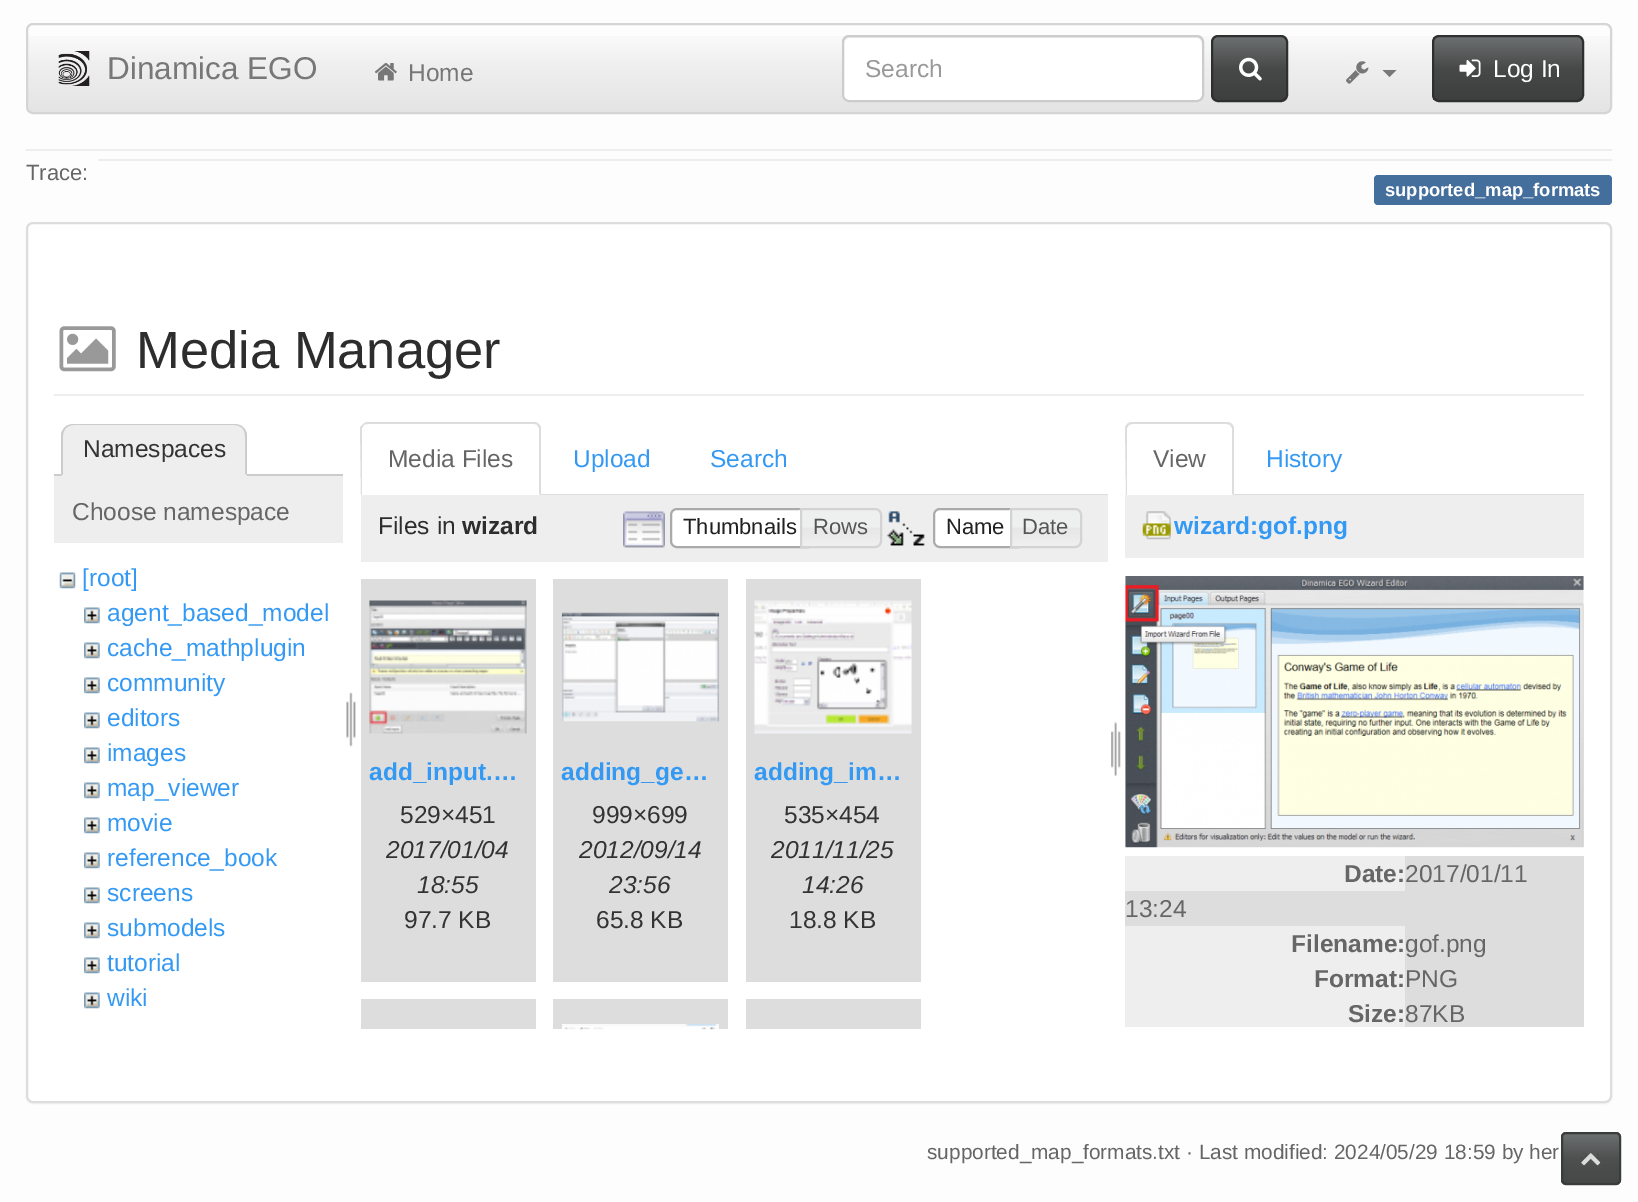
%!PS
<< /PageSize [1638 1202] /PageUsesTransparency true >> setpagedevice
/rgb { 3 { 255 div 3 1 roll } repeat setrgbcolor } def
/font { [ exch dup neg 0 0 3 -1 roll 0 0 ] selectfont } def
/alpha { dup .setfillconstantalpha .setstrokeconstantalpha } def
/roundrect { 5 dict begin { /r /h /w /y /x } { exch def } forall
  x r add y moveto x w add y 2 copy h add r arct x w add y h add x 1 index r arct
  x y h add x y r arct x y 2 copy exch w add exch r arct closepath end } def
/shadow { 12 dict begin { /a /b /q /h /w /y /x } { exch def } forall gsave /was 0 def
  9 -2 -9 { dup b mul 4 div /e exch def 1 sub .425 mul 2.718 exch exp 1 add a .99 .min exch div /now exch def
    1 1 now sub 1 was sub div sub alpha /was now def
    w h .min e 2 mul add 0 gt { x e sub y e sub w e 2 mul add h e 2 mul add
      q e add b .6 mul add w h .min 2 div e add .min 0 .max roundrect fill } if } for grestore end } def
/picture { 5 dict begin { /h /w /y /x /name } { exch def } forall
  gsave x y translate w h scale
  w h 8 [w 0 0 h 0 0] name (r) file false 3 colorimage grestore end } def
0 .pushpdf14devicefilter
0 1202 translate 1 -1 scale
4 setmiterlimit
253 253 253 rgb
0 0 1638 1202 rectfill
gsave 28 36 moveto 1610 36 lineto 1610 112 lineto 28 112 lineto closepath clip newpath
<< /ShadingType 2 /ColorSpace /DeviceRGB /Coords [819 24 819 112] /Extend [true true] /Function << /FunctionType 3 /Domain [0 1] /Functions [<< /FunctionType 2 /Domain [0 1] /C0 [1 1 1] /C1 [0.933 0.933 0.933] /N 1 >> << /FunctionType 2 /Domain [0 1] /C0 [0.933 0.933 0.933] /C1 [0.894 0.894 0.894] /N 1 >>] /Bounds [0.5] /Encode [0 1 0 1] >> >> shfill grestore
213 213 213 rgb
2 setlinewidth
27 24 1584 89 6 roundrect stroke
(img/1.rgb) 58 51 32 35 picture
(img/2.rgb) 374 63 23 18 picture
255 255 255 rgb
842 35 362 67 7 roundrect fill
236 236 236 rgb
849 38 moveto 1197 38 lineto 1200 38 1202 41 1202 44 curveto 1202 41 1201 37 1197 37 curveto 849 37 lineto 845 37 844 41 844 44 curveto 844 41 846 38 849 38 curveto closepath fill
204 204 204 rgb
843 36 360 65 6 roundrect stroke
gsave 1213 37 moveto 1286 37 lineto 1286 100 lineto 1213 100 lineto closepath clip newpath
<< /ShadingType 2 /ColorSpace /DeviceRGB /Coords [1250 37 1250 100] /Extend [true true] /Function << /FunctionType 3 /Domain [0 1] /Functions [<< /FunctionType 2 /Domain [0 1] /C0 [0.427 0.439 0.439] /C1 [0.278 0.286 0.286] /N 1 >> << /FunctionType 2 /Domain [0 1] /C0 [0.278 0.286 0.286] /C1 [0.239 0.247 0.247] /N 1 >>] /Bounds [0.5] /Encode [0 1 0 1] >> >> shfill grestore
46 47 47 rgb
1212 36 75 65 6 roundrect stroke
(img/3.rgb) 1239 57 23 24 picture
(img/4.rgb) 1346 61 23 23 picture
119 119 119 rgb
1382.5 70 moveto 1396.5 70 lineto 1389.5 77 lineto closepath fill
gsave 1433 37 moveto 1582 37 lineto 1582 100 lineto 1433 100 lineto closepath clip newpath
<< /ShadingType 2 /ColorSpace /DeviceRGB /Coords [1508 37 1508 100] /Extend [true true] /Function << /FunctionType 3 /Domain [0 1] /Functions [<< /FunctionType 2 /Domain [0 1] /C0 [0.427 0.439 0.439] /C1 [0.278 0.286 0.286] /N 1 >> << /FunctionType 2 /Domain [0 1] /C0 [0.278 0.286 0.286] /C1 [0.239 0.247 0.247] /N 1 >>] /Bounds [0.5] /Encode [0 1 0 1] >> >> shfill grestore
46 47 47 rgb
1433 36 150 65 6 roundrect stroke
(img/5.rgb) 1459 59 22 18 picture
238 238 238 rgb
26 149 1586 2 rectfill
98 159 1514 2 rectfill
68 110 155 rgb
1374 175 238 30 4 roundrect fill
0 0 0 rgb
26 224 1586 880 7 1 0.05 shadow
255 255 255 rgb
27 223 1584 879 6 roundrect gsave fill grestore
221 221 221 rgb
stroke
238 238 238 rgb
54 394 1530 2 rectfill
(img/6.rgb) 59 326 57 46 picture
204 204 204 rgb
54 474 289 2 rectfill
238 238 238 rgb
73 424 moveto 235 424 lineto 241.5 424 247 429.5 247 436 curveto 247 476 lineto 61 476 lineto 61 436 lineto 61 429.5 66.5 424 73 424 curveto closepath fill
204 204 204 rgb
74 424 moveto 71 424 67 425 65 427 curveto 66 428 lineto 68 426 71 425 74 425 curveto 234 425 lineto 237 425 240 426 242 428 curveto 243 427 lineto 241 425 237 424 234 424 curveto closepath fill
243 427 moveto 245 429 246 431 247 434 curveto 247 476 lineto 245 474 lineto 245 436 lineto 245 433 244 430 242 428 curveto closepath fill
238 238 238 rgb
247 476 moveto 245 474 lineto 63 474 lineto 61 476 lineto closepath fill
204 204 204 rgb
61 476 moveto 63 474 lineto 63 436 lineto 63 433 64 430 66 428 curveto 65 427 lineto 63 429 62 431 61 434 curveto closepath fill
238 238 238 rgb
54 476 289 67 rectfill
(img/7.rgb) 59 572 17 17 picture
(img/8.rgb) 84 607 16 17 picture
(img/8.rgb) 84 642 16 17 picture
(img/8.rgb) 84 677 16 17 picture
(img/8.rgb) 84 712 16 17 picture
(img/8.rgb) 84 747 16 17 picture
(img/8.rgb) 84 782 16 17 picture
(img/8.rgb) 84 817 16 17 picture
(img/8.rgb) 84 852 16 17 picture
(img/8.rgb) 84 887 16 17 picture
(img/8.rgb) 84 922 16 17 picture
(img/8.rgb) 84 957 16 17 picture
(img/8.rgb) 84 992 16 17 picture
(img/9.rgb) 346 692 10 55 picture
221 221 221 rgb
541 494 567 1 rectfill
368 422 moveto 366 422 364 423 363 424 curveto 364 425 lineto 365 424 367 424 368 424 curveto 534 424 lineto 535 424 537 424 537 425 curveto 539 424 lineto 538 423 536 422 534 422 curveto closepath fill
539 424 moveto 541 427 lineto 541 495 lineto 539 494 lineto 539 428 lineto 537 425 lineto closepath fill
360 427 moveto 363 424 lineto 364 425 lineto 362 428 lineto 362 494 lineto 361 495 lineto closepath fill
238 238 238 rgb
361 495 747 67 rectfill
(img/10.rgb) 623 511 42 37 picture
255 255 255 rgb
677 508 moveto 809 508 lineto 809 548 lineto 677 548 lineto 673 548 670 545 670 541 curveto 670 515 lineto 670 511 673 508 677 508 curveto closepath fill
(img/11.rgb) 672 508 3 2 picture
170 170 170 rgb
677 509 moveto 808 509 lineto 808 547 lineto 677 547 lineto 673.5 547 671 544.5 671 541 curveto 671 515 lineto 671 511.5 673.5 509 677 509 curveto closepath stroke
(img/12.rgb) 799 508 83 40 picture
211 211 211 rgb
801 509 moveto 875 509 lineto 878.5 509 881 511.5 881 515 curveto 881 541 lineto 881 544.5 878.5 547 875 547 curveto 801 547 lineto closepath stroke
(img/13.rgb) 886 511 39 35 picture
255 255 255 rgb
940 508 moveto 1019 508 lineto 1019 548 lineto 940 548 lineto 936 548 933 545 933 541 curveto 933 515 lineto 933 511 936 508 940 508 curveto closepath fill
(img/14.rgb) 933 508 5 40 picture
170 170 170 rgb
940 509 moveto 1018 509 lineto 1018 547 lineto 940 547 lineto 936.5 547 934 544.5 934 541 curveto 934 515 lineto 934 511.5 936.5 509 940 509 curveto closepath stroke
(img/15.rgb) 1009 508 72 40 picture
211 211 211 rgb
1011 509 moveto 1075 509 lineto 1078.5 509 1081 511.5 1081 515 curveto 1081 541 lineto 1081 544.5 1078.5 547 1075 547 curveto 1011 547 lineto closepath stroke
(img/16.rgb) 1111 721 10 55 picture
221 221 221 rgb
361 579 175 403 rectfill
(img/17.rgb) 369 600 158 134 picture
553 579 175 403 rectfill
(img/18.rgb) 561 612 159 110 picture
746 579 175 403 rectfill
(img/19.rgb) 754 600 158 134 picture
361 999 175 30 rectfill
553 999 175 30 rectfill
(img/20.rgb) 562 1024 157 6 picture
746 999 175 30 rectfill
1234 494 350 1 rectfill
1132 422 moveto 1130 422 1128 423 1127 424 curveto 1129 425 lineto 1132 424 lineto 1227 424 lineto 1230 425 lineto 1232 424 lineto 1231 423 1229 422 1227 422 curveto closepath fill
1232 424 moveto 1234 427 lineto 1234 495 lineto 1232 494 lineto 1232 428 lineto 1230 425 lineto closepath fill
1125 427 moveto 1127 424 lineto 1129 425 lineto 1127 428 lineto 1127 494 lineto 1126 495 lineto closepath fill
238 238 238 rgb
1125 495 459 63 rectfill
(img/21.rgb) 1142 511 29 29 picture
(img/22.rgb) 1125 576 459 272 picture
[
  [1125 856 459 70 221 221 221]
  [1125 856 280 35 238 238 238]
  [1125 926 280 101 238 238 238]
  [1405 926 179 101 221 221 221]
] { aload pop rgb rectfill } forall
0.8 alpha
71 73 73 rgb
1561 1132 60 53 5 roundrect fill
gsave 1563 1137 moveto 1619 1137 lineto 1619 1183 lineto 1563 1183 lineto closepath clip newpath
<< /ShadingType 2 /ColorSpace /DeviceRGB /Coords [1591 1134 1591 1183] /Extend [true true] /Function << /FunctionType 3 /Domain [0 1] /Functions [<< /FunctionType 2 /Domain [0 1] /C0 [0.427 0.439 0.439] /C1 [0.278 0.286 0.286] /N 1 >> << /FunctionType 2 /Domain [0 1] /C0 [0.278 0.286 0.286] /C1 [0.239 0.247 0.247] /N 1 >>] /Bounds [0.5] /Encode [0 1 0 1] >> >> shfill grestore
46 47 47 rgb
1562 1133 58 51 4 roundrect stroke
1 alpha
(img/23.rgb) 1581 1153 20 13 picture
/LiberationSans-Regular 31.5 font
119 119 119 rgb
107 79 moveto (Dinamica EGO) show
/LiberationSans-Regular 24.5 font
408 81 moveto (Home) show
153 153 153 rgb
865 77 moveto (Search) show
255 255 255 rgb
1493 77 moveto (Log In) show
/LiberationSans-Regular 22 font
102 102 102 rgb
26 180 moveto (Trace:) show
/LiberationSans-Bold 18.4 font
255 255 255 rgb
1385 196 moveto (supported_map_formats) show
/LiberationSans-Regular 52.5 font
45 45 45 rgb
136 368 moveto (Media Manager) show
/LiberationSans-Regular 24.5 font
51 51 51 rgb
83 457 moveto (Namespaces) show
102 102 102 rgb
72 520 moveto (Choose namespace) show
51 153 243 rgb
[
  [([root]) 82 586]
  [(agent_based_model) 107 621]
  [(cache_mathplugin) 107 656]
  [(community) 107 691]
  [(editors) 107 726]
  [(images) 107 761]
  [(map_viewer) 107 796]
  [(movie) 107 831]
  [(reference_book) 107 866]
  [(screens) 107 901]
  [(submodels) 107 936]
  [(tutorial) 107 971]
  [(wiki) 107 1006]
] { aload pop moveto show } forall
102 102 102 rgb
388 467 moveto (Media Files) show
51 153 243 rgb
573 467 moveto (Upload) show
710 467 moveto (Search) show
45 45 45 rgb
378 534 moveto (Files in) show
/LiberationSans-Bold 24.5 font
462 534 moveto (wizard) show
/LiberationSans-Regular 22 font
33 33 33 rgb
683 534 moveto (Thumbnails) show
85 85 85 rgb
813 534 moveto (Rows) show
33 33 33 rgb
946 534 moveto (Name) show
85 85 85 rgb
1022 534 moveto (Date) show
/LiberationSans-Bold 24.5 font
51 153 243 rgb
369 780 moveto (add_input.…) show
/LiberationSans-Regular 24.5 font
51 51 51 rgb
400 823 moveto (529×451) show
/LiberationSans-Italic 24.5 font
386 858 moveto (2017/01/04) show
417 893 moveto (18:55) show
/LiberationSans-Regular 24.5 font
404 928 moveto (97.7 KB) show
/LiberationSans-Bold 24.5 font
51 153 243 rgb
561 780 moveto (adding_ge…) show
/LiberationSans-Regular 24.5 font
51 51 51 rgb
592 823 moveto (999×699) show
/LiberationSans-Italic 24.5 font
579 858 moveto (2012/09/14) show
609 893 moveto (23:56) show
/LiberationSans-Regular 24.5 font
596 928 moveto (65.8 KB) show
/LiberationSans-Bold 24.5 font
51 153 243 rgb
754 780 moveto (adding_im…) show
/LiberationSans-Regular 24.5 font
51 51 51 rgb
784 823 moveto (535×454) show
/LiberationSans-Italic 24.5 font
771 858 moveto (2011/11/25) show
802 893 moveto (14:26) show
/LiberationSans-Regular 24.5 font
789 928 moveto (18.8 KB) show
102 102 102 rgb
1153 467 moveto (View) show
51 153 243 rgb
1266 467 moveto (History) show
/LiberationSans-Bold 24.5 font
1174 534 moveto (wizard:gof.png) show
/LiberationSans-Regular 24.5 font
102 102 102 rgb
1405 882 moveto (2017/01/11) show
1125 917 moveto (13:24) show
/LiberationSans-Bold 24.5 font
1344 882 moveto (Date:) show
1291 952 moveto (Filename:) show
/LiberationSans-Regular 24.5 font
1405 952 moveto (gof.png) show
/LiberationSans-Bold 24.5 font
1314 987 moveto (Format:) show
/LiberationSans-Regular 24.5 font
1405 987 moveto (PNG) show
/LiberationSans-Bold 24.5 font
1348 1022 moveto (Size:) show
/LiberationSans-Regular 24.5 font
1405 1022 moveto (87KB) show
/LiberationSans-Regular 20.8 font
927 1159 moveto (supported_map_formats.txt · Last modified: 2024/05/29 18:59 by her) show
.poppdf14devicefilter showpage
